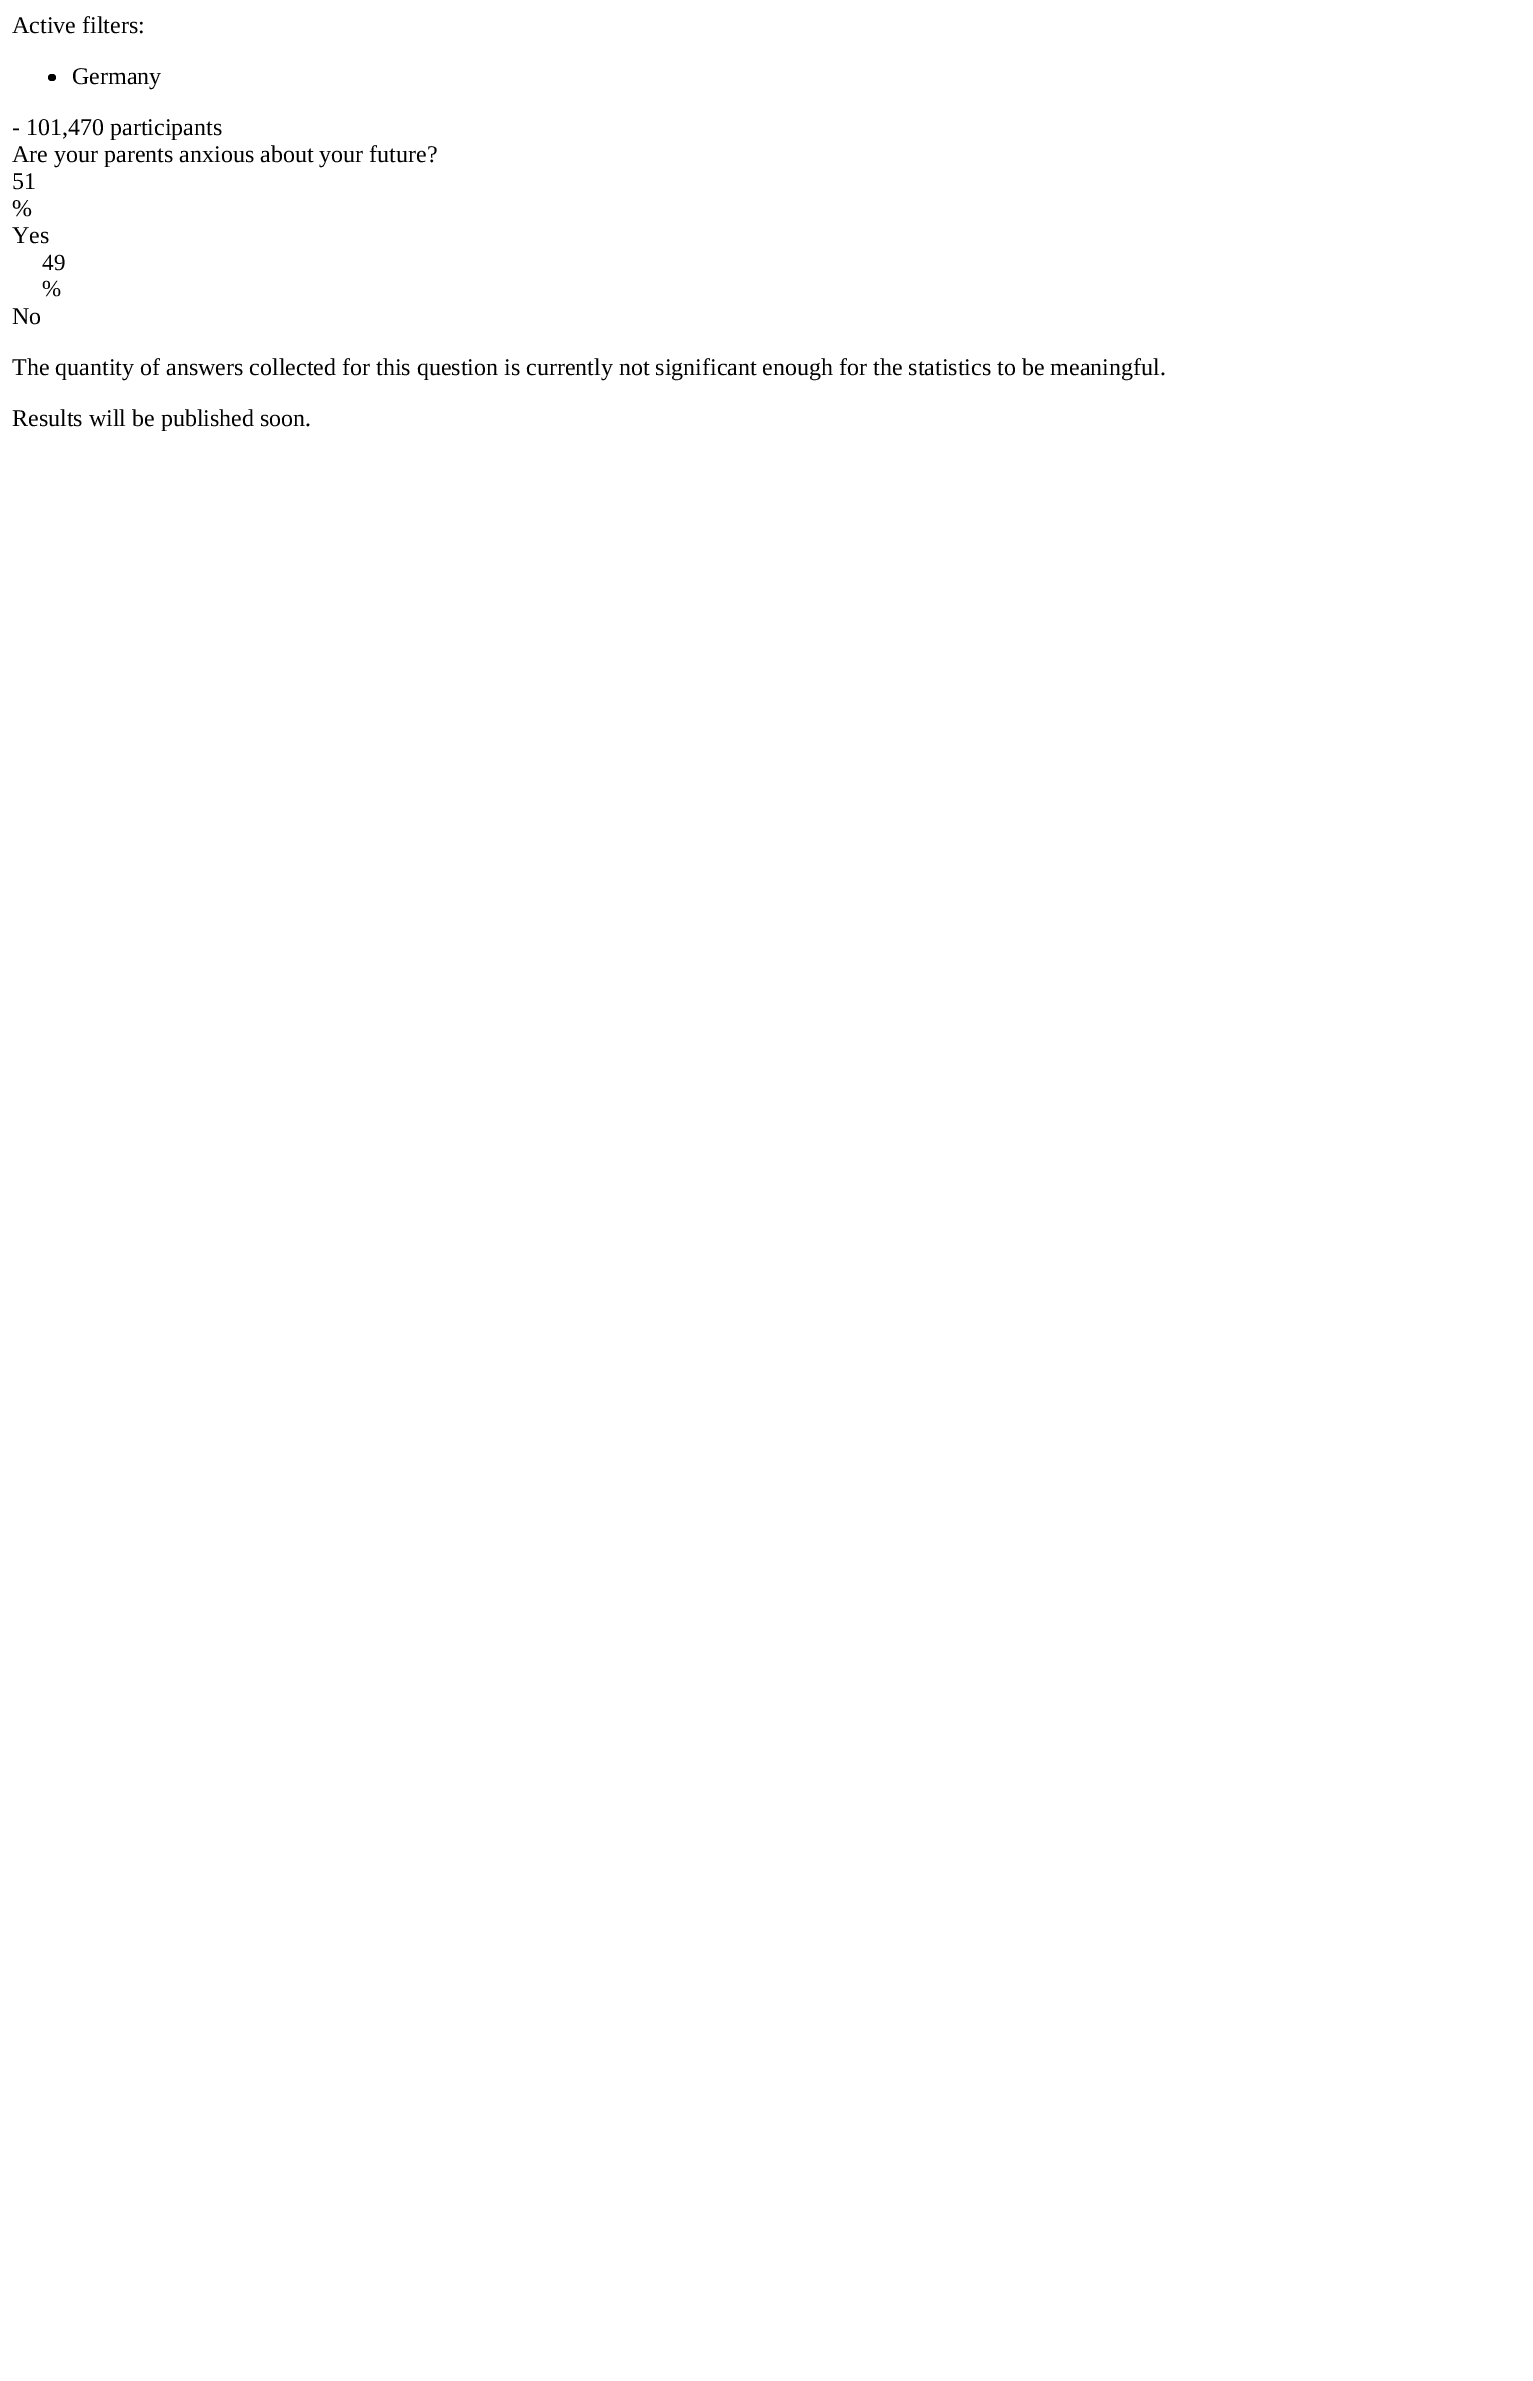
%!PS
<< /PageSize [1533 2381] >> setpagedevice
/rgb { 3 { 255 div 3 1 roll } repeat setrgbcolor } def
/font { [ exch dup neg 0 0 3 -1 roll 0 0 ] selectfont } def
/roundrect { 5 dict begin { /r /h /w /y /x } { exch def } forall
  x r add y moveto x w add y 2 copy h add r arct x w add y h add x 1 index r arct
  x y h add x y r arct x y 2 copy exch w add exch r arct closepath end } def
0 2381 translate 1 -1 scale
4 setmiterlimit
255 255 255 rgb
0 0 1533 2381 rectfill
0 0 0 rgb
48 74 8 7 3.5 roundrect fill
/LiberationSerif-Regular 24 font
[
  [(Active filters:) 12 33]
  [(Germany) 72 84]
  [(- 101,470 participants) 12 135]
  [(Are your parents anxious about your future?) 12 162]
  [(51) 12 189]
  [(%) 12 216]
  [(Yes) 12 243]
] { aload pop moveto show } forall
/LiberationSerif-Regular 23 font
42 270 moveto (49) show
42 296 moveto (%) show
/LiberationSerif-Regular 24 font
[
  [(No) 12 324]
  [(The quantity of answers collected for this question is currently not significant enough for the statistics to be meaningful.) 12 375]
  [(Results will be published soon.) 12 426]
] { aload pop moveto show } forall
showpage
